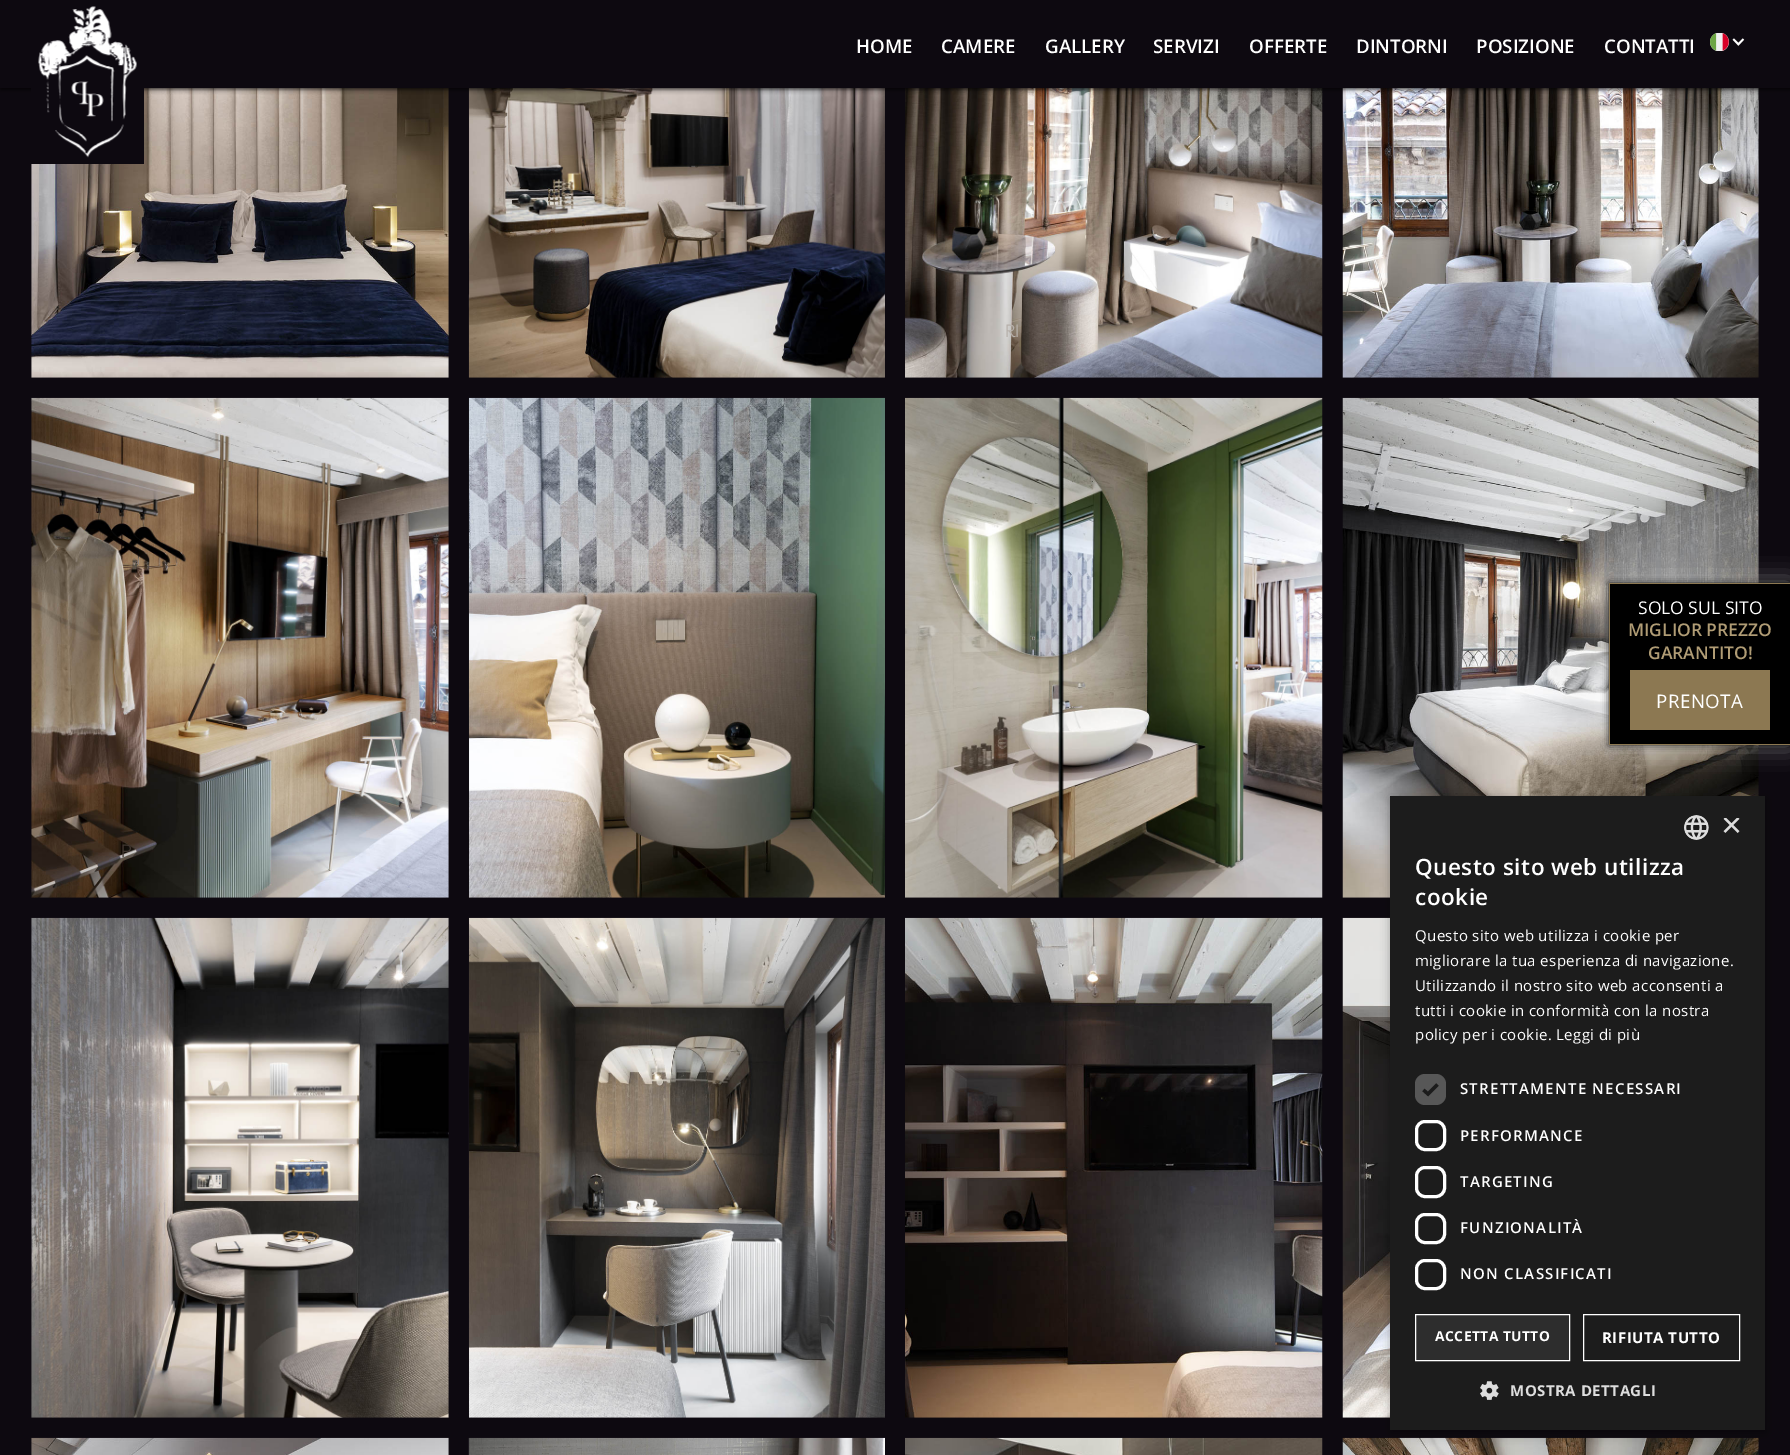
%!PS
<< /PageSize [1790 1455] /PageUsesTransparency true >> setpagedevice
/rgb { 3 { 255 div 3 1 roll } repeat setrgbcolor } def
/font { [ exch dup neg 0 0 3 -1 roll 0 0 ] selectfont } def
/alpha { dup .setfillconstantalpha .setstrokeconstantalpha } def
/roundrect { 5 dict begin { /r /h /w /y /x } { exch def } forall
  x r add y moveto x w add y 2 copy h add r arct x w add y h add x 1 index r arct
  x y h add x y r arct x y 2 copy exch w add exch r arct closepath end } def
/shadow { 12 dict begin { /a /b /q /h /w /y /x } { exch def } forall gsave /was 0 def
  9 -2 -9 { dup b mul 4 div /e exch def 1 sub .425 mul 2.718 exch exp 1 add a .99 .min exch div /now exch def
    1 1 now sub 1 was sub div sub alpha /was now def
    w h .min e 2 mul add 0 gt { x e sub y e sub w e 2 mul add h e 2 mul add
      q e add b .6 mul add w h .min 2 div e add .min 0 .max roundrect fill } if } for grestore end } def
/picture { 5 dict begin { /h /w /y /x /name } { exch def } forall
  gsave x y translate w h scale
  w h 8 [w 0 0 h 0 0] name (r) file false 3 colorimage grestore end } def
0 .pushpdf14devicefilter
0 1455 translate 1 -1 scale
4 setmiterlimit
13 9 16 rgb
0 0 1790 1455 rectfill
(img/4.rgb) 31 88 418 290 picture
(img/5.rgb) 468 88 417 290 picture
(img/6.rgb) 905 88 418 290 picture
(img/7.rgb) 1342 88 417 290 picture
0 0 0 rgb
1 1 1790 88 0 2.5 0.87 shadow
13 9 16 rgb
0 0 1790 88 rectfill
31 88 113 76 rectfill
(img/1.rgb) 38 6 99 152 picture
(img/2.rgb) 1710 33 19 18 picture
(img/3.rgb) 1732 38 13 8 picture
(img/8.rgb) 31 397 418 501 picture
(img/9.rgb) 468 397 417 501 picture
(img/10.rgb) 905 397 418 501 picture
(img/11.rgb) 1342 397 417 501 picture
(img/12.rgb) 31 917 418 501 picture
(img/13.rgb) 468 917 417 501 picture
(img/14.rgb) 905 917 418 501 picture
(img/15.rgb) 1342 917 48 501 picture
(img/16.rgb) 31 1437 418 18 picture
(img/17.rgb) 468 1437 417 18 picture
(img/18.rgb) 905 1437 418 18 picture
(img/19.rgb) 1342 1437 417 18 picture
255 255 255 rgb
1609 583 181 162 0 12 0.5 shadow
0 0 0 rgb
1609 583 181 162 0 4 0.87 shadow
[
  [1610 584 180 160 0 0 0]
  [1609 583 181 1 140 120 82]
  [1609 744 181 1 140 120 82]
  [1609 583 1 162 140 120 82]
  [1630 670 140 60 140 120 82]
] { aload pop rgb rectfill } forall
0 0 0 rgb
1391 799 375 634 0 5 0.35 shadow
28 28 28 rgb
1390 796 375 634 rectfill
(img/20.rgb) 1684 815 25 25 picture
87 87 87 rgb
1415 1074 31 31 10 roundrect fill
28 28 28 rgb
3.3 setlinewidth
1423.5 1090 moveto 1428 1094 lineto 1437.5 1084.5 lineto stroke
255 255 255 rgb
3 setlinewidth
1416.5 1121.5 28 28 8.5 roundrect stroke
1416.5 1167.5 28 29 8.5 roundrect stroke
1416.5 1214.5 28 28 8.5 roundrect stroke
1416.5 1260.5 28 28 8.5 roundrect stroke
45 45 45 rgb
1415.5 1314.5 moveto 1569.5 1314.5 lineto 1569.5 1360.5 lineto 1415.5 1360.5 lineto closepath gsave fill grestore
255 255 255 rgb
1 setlinewidth
stroke
1583.5 1314.5 156 46 rectstroke
(img/21.rgb) 1480 1381 19 19 picture
/OpenSans-SemiBold 18.75 font
[
  [(HOME) 856 53]
  [(CAMERE) 941 53]
  [(GALLERY) 1045 53]
  [(SERVIZI) 1153 53]
  [(OFFERTE) 1249 53]
  [(DINTORNI) 1356 53]
  [(POSIZIONE) 1476 53]
  [(CONTATTI) 1604 53]
] { aload pop moveto show } forall
/Livvic-Regular 17.5 font
182 176 170 rgb
1005 337 moveto (RI) show
63 54 48 rgb
121 857 moveto (P) show
/OpenSans-Regular 17.5 font
255 255 255 rgb
1638 614 moveto (SOLO SUL SITO) show
/OpenSans-SemiBold 17.5 font
176 156 117 rgb
1628 636 moveto (MIGLIOR PREZZO) show
1648 659 moveto (GARANTITO!) show
/OpenSans-Regular 18.75 font
255 255 255 rgb
1656 708 moveto 0.5 0 (PRENOTA) ashow
gsave
1721 818 19 18 rectclip
/LiberationSans-Regular 36 font
221 221 221 rgb
1721 837 moveto (×) show
grestore
/OpenSans-SemiBold 22.5 font
1415 875 moveto 0.5 0 (Questo sito web utilizza) ashow
1415 905 moveto 0.5 0 (cookie) ashow
/OpenSans-Regular 15 font
1415 941 moveto 0.4 0 (Questo sito web utilizza i cookie per) ashow
1415 966 moveto 0.4 0 (migliorare la tua esperienza di navigazione.) ashow
1415 991 moveto 0.4 0 (Utilizzando il nostro sito web acconsenti a) ashow
1415 1016 moveto 0.4 0 (tutti i cookie in conformità con la nostra) ashow
1415 1040 moveto 0.4 0 (policy per i cookie. Leggi di più) ashow
/OpenSans-SemiBold 15 font
1460 1094 moveto 1.25 0 (STRETTAMENTE NECESSARI) ashow
1460 1141 moveto 1.25 0 (PERFORMANCE) ashow
1460 1187 moveto 1.25 0 (TARGETING) ashow
1460 1233 moveto 1.25 0 (FUNZIONALITÀ) ashow
1460 1279 moveto 1.25 0 (NON CLASSIFICATI) ashow
/OpenSans-Bold 13.75 font
1435 1341 moveto 0.5 0 (ACCETTA TUTTO) ashow
/OpenSans-Bold 15 font
1602 1343 moveto 0.5 0 (RIFIUTA TUTTO) ashow
221 221 221 rgb
1510 1396 moveto 0.5 0 (MOSTRA DETTAGLI) ashow
.poppdf14devicefilter showpage
